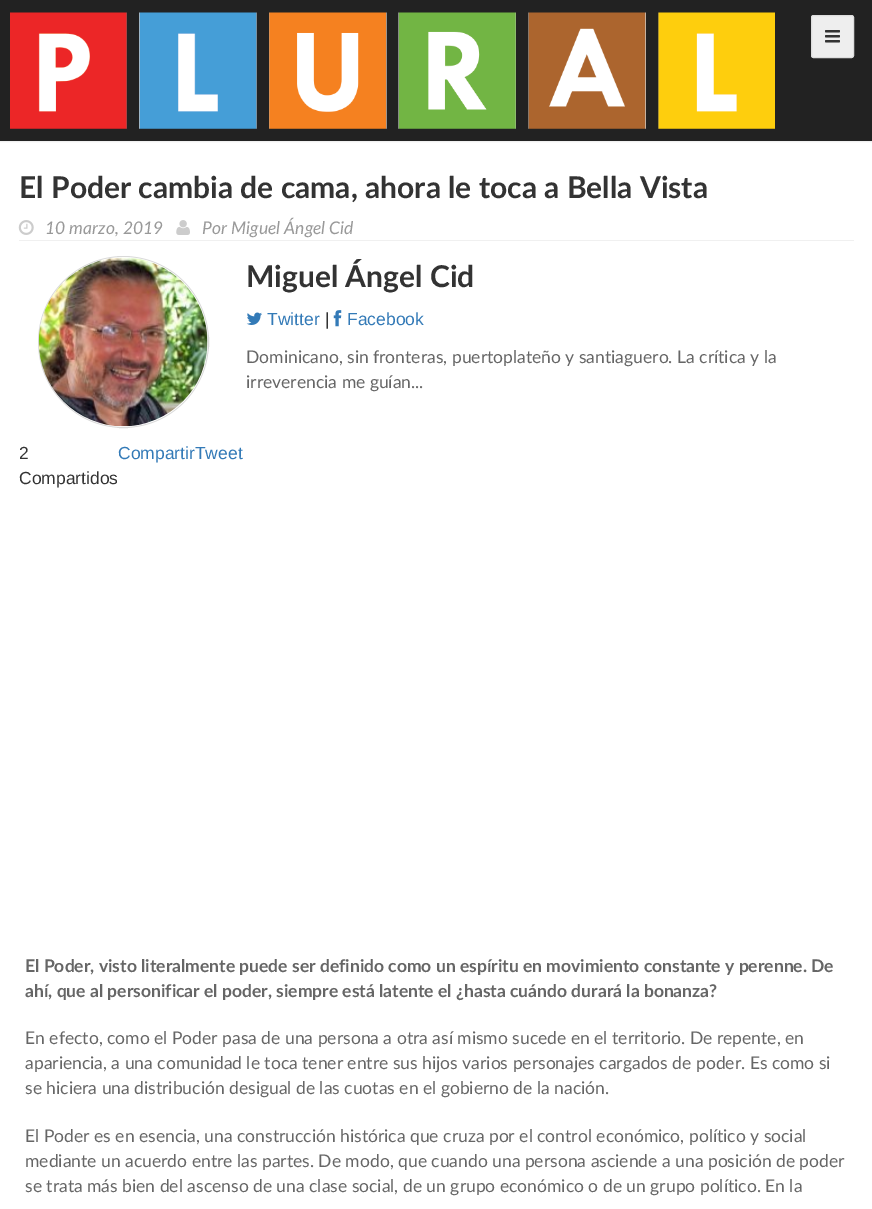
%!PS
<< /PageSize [872 1209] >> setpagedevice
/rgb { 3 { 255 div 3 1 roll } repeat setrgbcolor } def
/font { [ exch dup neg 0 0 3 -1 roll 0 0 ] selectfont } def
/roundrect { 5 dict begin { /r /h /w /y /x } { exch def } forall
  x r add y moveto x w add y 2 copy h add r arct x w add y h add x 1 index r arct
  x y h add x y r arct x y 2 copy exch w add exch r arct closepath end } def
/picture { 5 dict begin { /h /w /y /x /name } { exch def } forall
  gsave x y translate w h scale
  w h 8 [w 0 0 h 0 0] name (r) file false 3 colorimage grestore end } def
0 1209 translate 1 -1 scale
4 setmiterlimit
255 255 255 rgb
0 0 872 1209 rectfill
250 250 250 rgb
0 142 872 1 rectfill
34 34 34 rgb
0 0 872 141 rectfill
(img/1.rgb) 10 12 765 117 picture
238 238 238 rgb
811.5 15.5 42 42 2 roundrect gsave fill grestore
221 221 221 rgb
stroke
(img/2.rgb) 825 30 15 13 picture
240 240 240 rgb
0 141 872 1 rectfill
19 240 835 1 rectfill
(img/3.rgb) 18 220 16 15 picture
(img/4.rgb) 176 220 14 15 picture
217 217 217 rgb
38.5 256.5 170 171 85 roundrect stroke
(img/5.rgb) 38 257 170 170 picture
(img/6.rgb) 246 312 16 13 picture
(img/7.rgb) 333 310 9 17 picture
/Lato-Bold 30 font
51 51 51 rgb
19 198 moveto (El Poder cambia de cama, ahora le toca a Bella Vista) show
/Lato-Italic 17.5 font
153 153 153 rgb
45 234 moveto (10 marzo, 2019) show
202 234 moveto (Por Miguel Ángel Cid) show
/Lato-Bold 30 font
51 51 51 rgb
246 287 moveto (Miguel Ángel Cid) show
/LiberationSans-Regular 17.5 font
51 122 183 rgb
267 325 moveto (Twitter) show
51 51 51 rgb
325 325 moveto (|) show
51 122 183 rgb
347 325 moveto (Facebook) show
/Lato-Regular 17.5 font
102 102 102 rgb
246 363 moveto (Dominicano, sin fronteras, puertoplateño y santiaguero. La crítica y la) show
246 388 moveto (irreverencia me guían...) show
/LiberationSans-Regular 17.5 font
51 51 51 rgb
19 459 moveto (2) show
19 484 moveto (Compartidos) show
51 122 183 rgb
118 459 moveto (CompartirTweet) show
/Lato-Bold 17.5 font
102 102 102 rgb
25 972 moveto (El Poder, visto literalmente puede ser definido como un espíritu en movimiento constante y perenne. De) show
25 997 moveto (ahí, que al personificar el poder, siempre está latente el ¿hasta cuándo durará la bonanza?) show
/Lato-Regular 17.5 font
[
  [(En efecto, como el Poder pasa de una persona a otra así mismo sucede en el territorio. De repente, en) 25 1044]
  [(apariencia, a una comunidad le toca tener entre sus hijos varios personajes cargados de poder. Es como si) 25 1069]
  [(se hiciera una distribución desigual de las cuotas en el gobierno de la nación.) 25 1094]
  [(El Poder es en esencia, una construcción histórica que cruza por el control económico, político y social) 25 1142]
  [(mediante un acuerdo entre las partes. De modo, que cuando una persona asciende a una posición de poder) 25 1167]
  [(se trata más bien del ascenso de una clase social, de un grupo económico o de un grupo político. En la) 25 1192]
] { aload pop moveto show } forall
showpage
